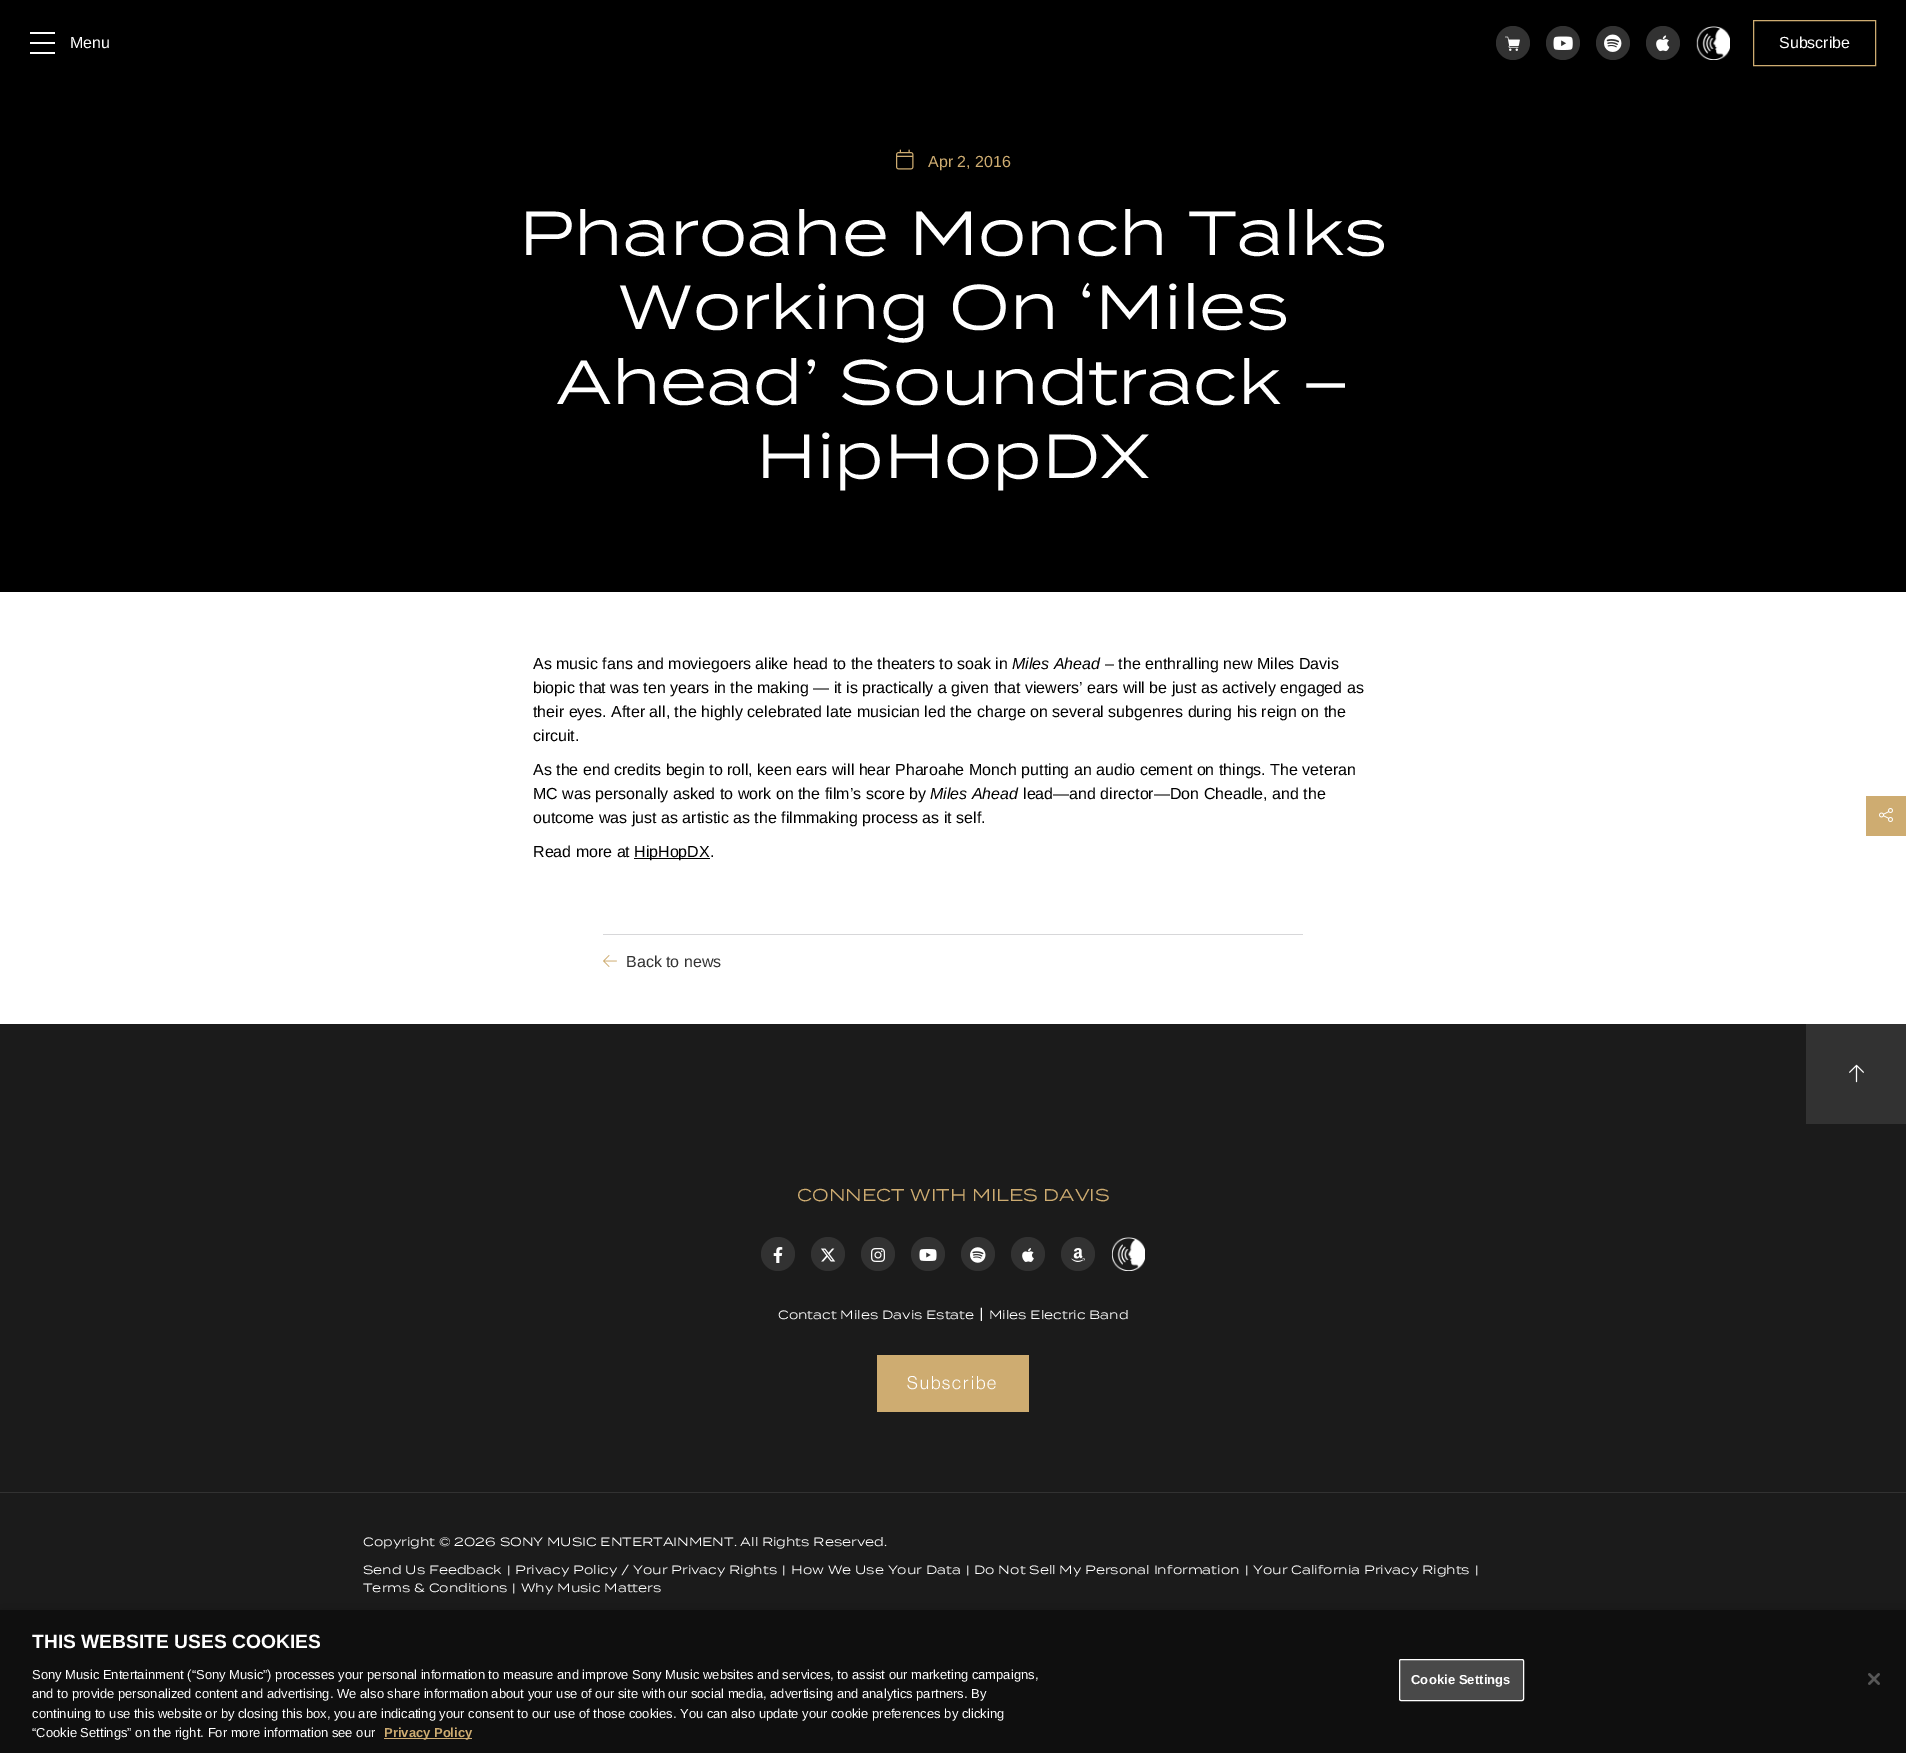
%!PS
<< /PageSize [1906 1753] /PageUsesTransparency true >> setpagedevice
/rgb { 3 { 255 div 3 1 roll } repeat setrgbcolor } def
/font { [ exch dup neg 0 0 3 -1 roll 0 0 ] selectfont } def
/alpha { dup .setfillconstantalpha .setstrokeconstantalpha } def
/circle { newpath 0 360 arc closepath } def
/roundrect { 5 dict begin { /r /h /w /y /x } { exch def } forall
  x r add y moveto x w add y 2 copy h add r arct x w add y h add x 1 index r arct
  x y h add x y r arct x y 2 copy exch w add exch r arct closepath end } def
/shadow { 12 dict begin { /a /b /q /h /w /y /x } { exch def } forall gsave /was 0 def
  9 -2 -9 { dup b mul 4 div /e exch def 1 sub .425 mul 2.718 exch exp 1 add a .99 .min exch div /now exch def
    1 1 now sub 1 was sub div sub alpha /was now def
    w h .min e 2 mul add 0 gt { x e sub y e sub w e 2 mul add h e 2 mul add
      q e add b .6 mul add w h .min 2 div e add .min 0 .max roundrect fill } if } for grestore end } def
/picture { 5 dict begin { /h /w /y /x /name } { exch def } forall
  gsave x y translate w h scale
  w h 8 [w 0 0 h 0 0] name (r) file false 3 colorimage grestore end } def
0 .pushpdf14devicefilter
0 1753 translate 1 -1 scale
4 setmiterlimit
255 255 255 rgb
0 0 1906 1753 rectfill
[
  [0 0 1906 592 0 0 0]
  [30 52 25 2 255 255 255]
  [30 32 25 2 255 255 255]
  [30 42 25 2 255 255 255]
] { aload pop rgb rectfill } forall
50 50 50 rgb
1513 43 17 circle fill
(img/1.rgb) 1505 36 15 15 picture
1563 43 17 circle fill
(img/2.rgb) 1553 36 20 14 picture
1613 43 17 circle fill
(img/3.rgb) 1604 34 18 18 picture
1663 43 17 circle fill
(img/4.rgb) 1656 35 14 17 picture
(img/5.rgb) 1696 26 34 34 picture
206 172 113 rgb
1753.5 20.5 122 45 rectstroke
(img/6.rgb) 896 149 18 21 picture
0 0 0 rgb
634 858 76 1 rectfill
215 215 217 rgb
603 934 700 1 rectfill
(img/7.rgb) 603 955 14 12 picture
206 172 113 rgb
1866 796 40 40 rectfill
(img/8.rgb) 1879 808 14 14 picture
27 27 27 rgb
0 1024 1906 586 rectfill
50 50 50 rgb
1806 1024 100 100 rectfill
(img/9.rgb) 1849 1064 15 19 picture
778 1254 17 circle fill
(img/10.rgb) 773 1247 10 16 picture
828 1254 17 circle fill
(img/11.rgb) 821 1248 15 14 picture
878 1254 17 circle fill
(img/12.rgb) 871 1248 14 14 picture
928 1254 17 circle fill
(img/13.rgb) 919 1249 18 12 picture
978 1254 17 circle fill
(img/14.rgb) 970 1247 16 16 picture
1028 1254 17 circle fill
(img/15.rgb) 1022 1248 12 14 picture
1078 1254 17 circle fill
(img/16.rgb) 1071 1248 14 14 picture
(img/17.rgb) 1111 1237 34 34 picture
206 172 113 rgb
877 1355 152 57 rectfill
50 50 50 rgb
0 1492 1906 1 rectfill
0 0 0 rgb
0 1610 1906 143 0 9 0.2 shadow
15 15 15 rgb
0 1610 1906 143 rectfill
206 171 113 rgb
384 1738 88 1 rectfill
73 73 73 rgb
1399.5 1659.5 124 41 1.5 roundrect gsave fill grestore
255 255 255 rgb
stroke
(img/18.rgb) 1868 1673 12 12 picture
/LiberationSans-Regular 16 font
70 48 moveto (Menu) show
1779 48 moveto (Subscribe) show
206 172 113 rgb
928 167 moveto (Apr 2, 2016) show
/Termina-Regular 62 font
255 255 255 rgb
[
  [(Pharoahe Monch Talks) 519 255]
  [(Working On ‘Miles) 618 329]
  [(Ahead’ Soundtrack –) 556 404]
  [(HipHopDX) 756 478]
] { aload pop moveto show } forall
/LiberationSans-Regular 16 font
0 0 0 rgb
533 669 moveto (As music fans and moviegoers alike head to the theaters to soak in) show
/LiberationSans-Italic 16 font
1012 669 moveto (Miles Ahead) show
/LiberationSans-Regular 16 font
[
  [(– the enthralling new Miles Davis) 1105 669]
  [(biopic that was ten years in the making — it is practically a given that viewers’ ears will be just as actively engaged as) 533 693]
  [(their eyes. After all, the highly celebrated late musician led the charge on several subgenres during his reign on the) 533 717]
  [(circuit.) 533 741]
  [(As the end credits begin to roll, keen ears will hear Pharoahe Monch putting an audio cement on things. The veteran) 533 775]
  [(MC was personally asked to work on the film’s score by) 533 799]
] { aload pop moveto show } forall
/LiberationSans-Italic 16 font
930 799 moveto (Miles Ahead) show
/LiberationSans-Regular 16 font
[
  [(lead—and director—Don Cheadle, and the) 1023 799]
  [(outcome was just as artistic as the filmmaking process as it self.) 533 823]
  [(Read more at) 533 857]
  [(HipHopDX.) 634 857]
] { aload pop moveto show } forall
50 50 50 rgb
626 967 moveto (Back to news) show
/Termina-Regular 17 font
206 172 113 rgb
797 1201 moveto (CONNECT WITH MILES DAVIS) show
/Termina-Regular 12 font
255 255 255 rgb
778 1319 moveto (Contact Miles Davis Estate) show
/Termina-Regular 16 font
979 1319 moveto (|) show
/Termina-Regular 12 font
989 1319 moveto (Miles Electric Band) show
/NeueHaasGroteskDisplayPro-Regular 18 font
907 1389 moveto 2 0 (Subscribe) ashow
/Termina-Regular 12 font
[
  [(Copyright © 2026 SONY MUSIC ENTERTAINMENT. All Rights Reserved.) 363 1546]
  [(Send Us Feedback) 363 1574]
  [(|) 507 1574]
  [(Privacy Policy / Your Privacy Rights) 515 1574]
  [(|) 782 1574]
  [(How We Use Your Data) 791 1574]
  [(|) 966 1574]
  [(Do Not Sell My Personal Information) 974 1574]
  [(|) 1245 1574]
  [(Your California Privacy Rights) 1253 1574]
  [(|) 1475 1574]
  [(Terms & Conditions) 363 1592]
  [(|) 512 1592]
  [(Why Music Matters) 521 1592]
] { aload pop moveto show } forall
/LiberationSans-Bold 19.25 font
32 1648 moveto (THIS WEBSITE USES COOKIES) show
/LiberationSans-Regular 13 font
[
  [(Sony Music Entertainment \(“Sony Music”\) processes your personal information to measure and improve Sony Music websites and services, to assist our marketing campaigns,) 32 1679]
  [(and to provide personalized content and advertising. We also share information about your use of our site with our social media, advertising and analytics partners. By) 32 1698]
  [(continuing to use this website or by closing this box, you are indicating your consent to our use of those cookies. You can also update your cookie preferences by clicking) 32 1718]
  [(“Cookie Settings” on the right. For more information see our) 32 1737]
] { aload pop moveto show } forall
/LiberationSans-Bold 13 font
206 172 113 rgb
384 1737 moveto (Privacy Policy) show
255 255 255 rgb
1411 1684 moveto 0.1 0 (Cookie Settings) ashow
.poppdf14devicefilter showpage
